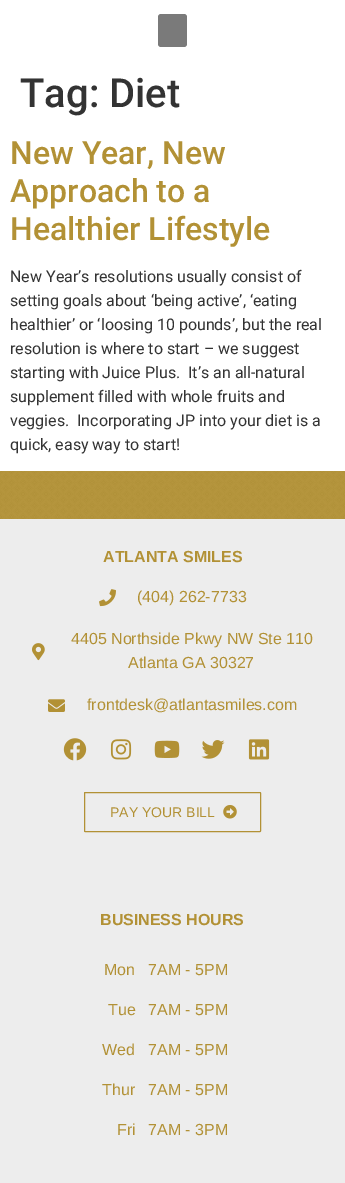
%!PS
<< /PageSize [345 1183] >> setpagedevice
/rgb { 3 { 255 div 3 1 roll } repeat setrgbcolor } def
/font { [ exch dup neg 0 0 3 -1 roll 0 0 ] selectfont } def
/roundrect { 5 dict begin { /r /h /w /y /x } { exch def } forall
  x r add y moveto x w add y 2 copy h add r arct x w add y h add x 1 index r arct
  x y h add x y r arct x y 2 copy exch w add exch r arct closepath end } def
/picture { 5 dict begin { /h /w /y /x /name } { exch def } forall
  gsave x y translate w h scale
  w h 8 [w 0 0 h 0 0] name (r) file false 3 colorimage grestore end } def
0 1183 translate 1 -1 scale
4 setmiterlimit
255 255 255 rgb
0 0 345 1183 rectfill
122 122 122 rgb
158 14 29 33 3 roundrect fill
(img/1.rgb) 0 471 345 48 picture
237 237 237 rgb
0 519 345 664 rectfill
(img/2.rgb) 99 589 17 18 picture
(img/3.rgb) 32 643 13 18 picture
(img/4.rgb) 48 699 17 13 picture
(img/5.rgb) 63 738 24 23 picture
(img/6.rgb) 110 739 22 21 picture
(img/7.rgb) 154 740 26 18 picture
(img/8.rgb) 201 740 24 19 picture
(img/9.rgb) 248 739 22 21 picture
178 145 53 rgb
84.5 792.5 176 39 0.5 roundrect stroke
(img/10.rgb) 223 805 14 14 picture
/Roboto-Medium 40 font
51 51 51 rgb
20 107 moveto (Tag: Diet) show
/Roboto-Medium 32 font
178 145 53 rgb
[
  [(New Year, New) 10 164]
  [(Approach to a) 10 202]
  [(Healthier Lifestyle) 10 240]
] { aload pop moveto show } forall
/Roboto-Regular 16 font
51 51 51 rgb
[
  [(New Year’s resolutions usually consist of) 10 282]
  [(setting goals about ‘being active’, ‘eating) 10 306]
  [(healthier’ or ‘loosing 10 pounds’, but the real) 10 330]
  [(resolution is where to start – we suggest) 10 354]
  [(starting with Juice Plus.  It’s an all-natural) 10 378]
  [(supplement filled with whole fruits and) 10 402]
  [(veggies.  Incorporating JP into your diet is a) 10 426]
  [(quick, easy way to start!) 10 450]
] { aload pop moveto show } forall
/LiberationSans-Bold 16 font
178 145 53 rgb
103 562 moveto (ATLANTA SMILES) show
/LiberationSans-Regular 16 font
[
  [(\(404\) 262-7733) 137 602]
  [(4405 Northside Pkwy NW Ste 110) 71 644]
  [(Atlanta GA 30327) 128 668]
  [(frontdesk@atlantasmiles.com) 87 710]
] { aload pop moveto show } forall
/LiberationSans-Regular 14 font
110 817 moveto (PAY YOUR BILL) show
/LiberationSans-Bold 16 font
100 925 moveto (BUSINESS HOURS) show
/LiberationSans-Regular 16 font
[
  [(Mon) 104 975]
  [(Tue) 108 1015]
  [(Wed) 102 1055]
  [(Thur) 102 1095]
  [(Fri) 117 1135]
  [(7AM - 5PM) 148 975]
  [(7AM - 5PM) 148 1015]
  [(7AM - 5PM) 148 1055]
  [(7AM - 5PM) 148 1095]
  [(7AM - 3PM) 148 1135]
] { aload pop moveto show } forall
showpage
